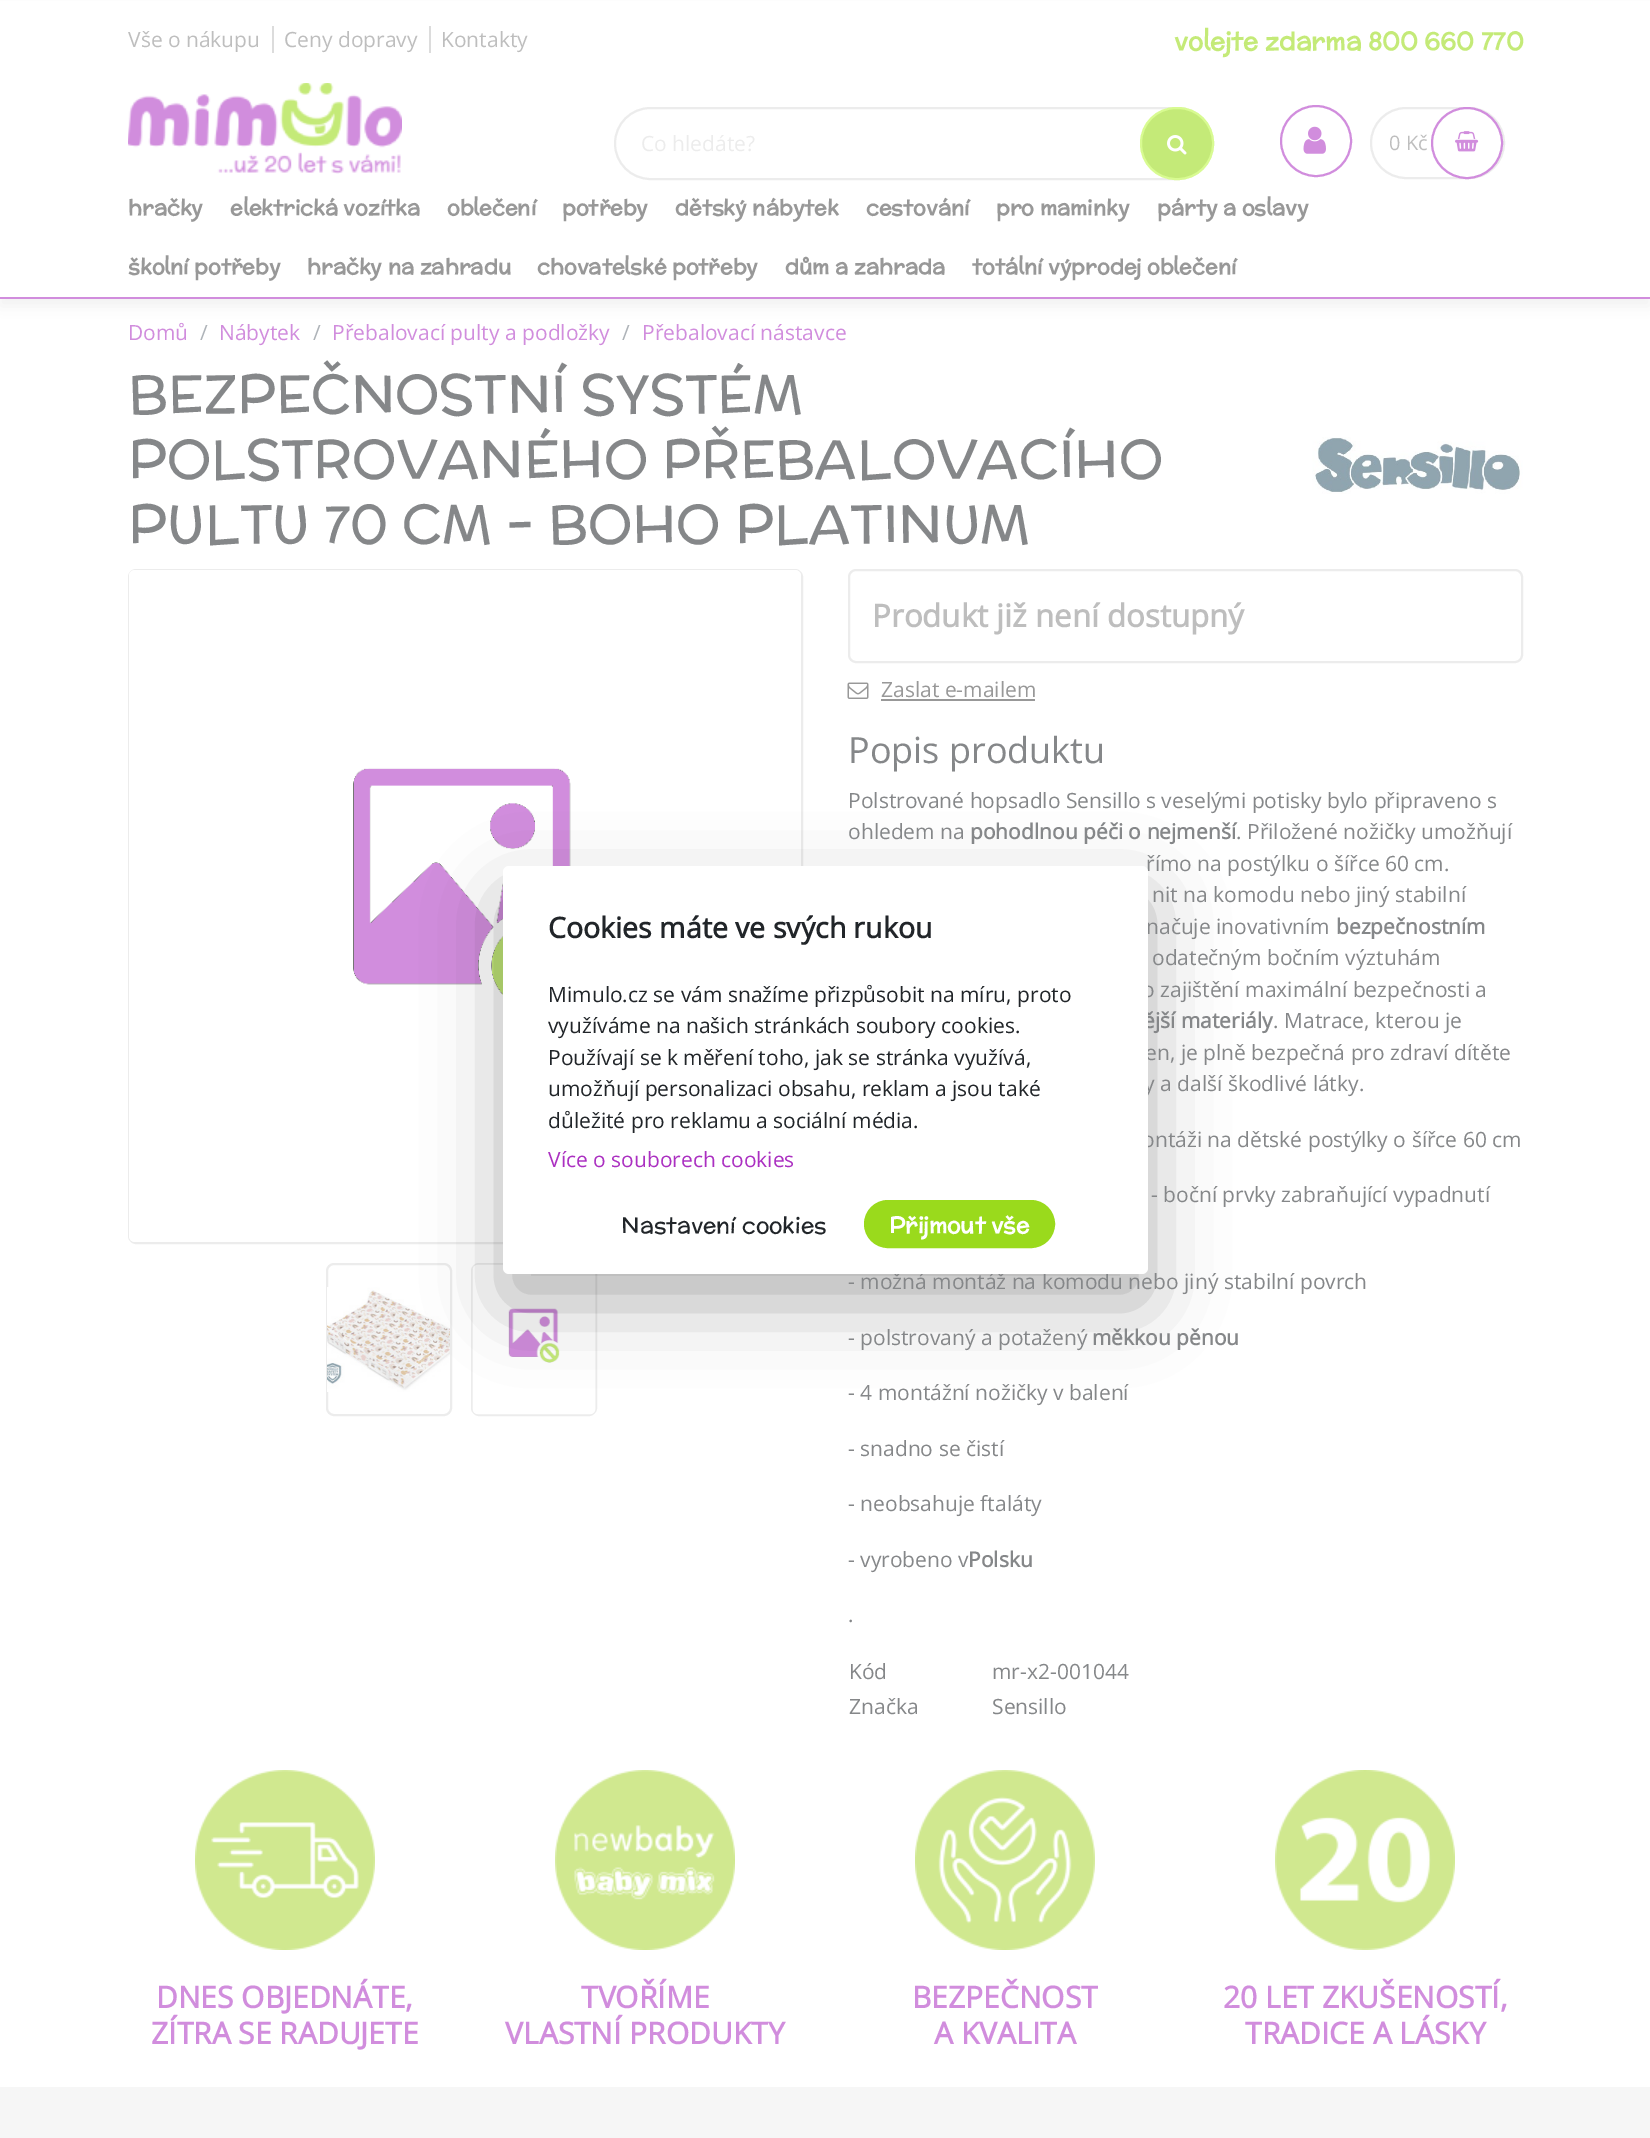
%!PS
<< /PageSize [1650 2138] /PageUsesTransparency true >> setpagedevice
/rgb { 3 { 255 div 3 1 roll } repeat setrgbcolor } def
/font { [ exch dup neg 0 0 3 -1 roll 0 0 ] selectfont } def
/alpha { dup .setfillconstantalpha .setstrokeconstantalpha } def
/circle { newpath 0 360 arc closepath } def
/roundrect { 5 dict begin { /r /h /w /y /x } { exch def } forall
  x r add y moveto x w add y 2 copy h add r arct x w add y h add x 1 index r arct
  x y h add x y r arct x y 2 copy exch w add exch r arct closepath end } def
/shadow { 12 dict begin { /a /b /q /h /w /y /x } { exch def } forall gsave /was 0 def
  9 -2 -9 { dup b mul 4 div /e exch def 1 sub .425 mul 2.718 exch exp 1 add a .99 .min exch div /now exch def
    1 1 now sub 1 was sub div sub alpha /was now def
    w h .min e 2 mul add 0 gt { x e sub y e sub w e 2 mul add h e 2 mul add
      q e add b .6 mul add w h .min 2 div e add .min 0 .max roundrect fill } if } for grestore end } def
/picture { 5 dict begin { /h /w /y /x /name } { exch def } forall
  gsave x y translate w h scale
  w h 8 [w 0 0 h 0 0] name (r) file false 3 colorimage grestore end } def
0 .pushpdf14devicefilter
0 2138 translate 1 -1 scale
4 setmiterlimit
255 255 255 rgb
0 0 1650 2138 rectfill
236 236 236 rgb
0 8 1650 298 0 7.5 0.73 shadow
[
  [0 1 1650 296 255 255 255]
  [0 297 1650 2 209 141 221]
  [272 26 2 27 220 220 220]
  [429 26 2 27 220 220 220]
] { aload pop rgb rectfill } forall
(img/1.rgb) 128 83 274 91 picture
236 236 236 rgb
2 setlinewidth
615 108 598 71 35.5 roundrect stroke
196 234 120 rgb
1141 108 72 71 35 roundrect gsave fill grestore
216 251 145 rgb
stroke
(img/2.rgb) 1167 135 20 20 picture
209 141 221 rgb
1316 141 35 circle stroke
(img/3.rgb) 1303 126 23 28 picture
236 236 236 rgb
1371 108 133 70 35 roundrect stroke
255 255 255 rgb
1467 143 35 circle gsave fill grestore
209 141 221 rgb
stroke
(img/4.rgb) 1455 131 24 21 picture
(img/5.rgb) 1312 437 211 57 picture
236 236 236 rgb
129 570 673 673 7 roundrect stroke
(img/6.rgb) 129 570 672 672 picture
327 1264 124 151 7 roundrect stroke
(img/7.rgb) 327 1287 123 105 picture
472 1264 124 151 7 roundrect stroke
(img/8.rgb) 472 1264 124 151 picture
849 570 673 92 7 roundrect stroke
(img/9.rgb) 847 682 22 17 picture
152 152 152 rgb
881 699 154 2 rectfill
0 0 0 rgb
503 896 645 408 6 37.5 0.3 shadow
246 246 246 rgb
0 2087 1650 51 rectfill
(img/10.rgb) 195 1770 180 180 picture
(img/11.rgb) 555 1770 180 180 picture
(img/12.rgb) 915 1770 180 180 picture
(img/13.rgb) 1275 1770 180 180 picture
/OpenSans-Regular 21 font
190 190 190 rgb
[
  [(Vše o nákupu) 128 47]
  [(Ceny dopravy) 284 47]
  [(Kontakty) 441 47]
] { aload pop moveto show } forall
/McLaren-Bold 25.25 font
196 234 120 rgb
1174 50 moveto (volejte zdarma 800 660 770) show
/OpenSans-Regular 21 font
236 236 236 rgb
641 151 moveto (Co hledáte?) show
/OpenSans-Regular 20 font
190 190 190 rgb
1389 150 moveto (0 Kč) show
/McLaren-Bold 21.25 font
152 152 152 rgb
[
  [(hračky) 128 215]
  [(elektrická vozítka) 230 215]
  [(oblečení) 447 215]
  [(potřeby) 562 215]
  [(dětský nábytek) 675 215]
  [(cestování) 866 215]
  [(pro maminky) 996 215]
  [(párty a oslavy) 1157 215]
  [(školní potřeby) 128 274]
  [(hračky na zahradu) 307 274]
  [(chovatelské potřeby) 537 274]
  [(dům a zahrada) 785 274]
  [(totální výprodej oblečení) 972 274]
] { aload pop moveto show } forall
/OpenSans-Regular 21 font
209 141 221 rgb
128 340 moveto (Domů) show
174 179 184 rgb
200 340 moveto (/) show
209 141 221 rgb
219 340 moveto (Nábytek) show
174 179 184 rgb
313 340 moveto (/) show
209 141 221 rgb
332 340 moveto (Přebalovací pulty a podložky) show
174 179 184 rgb
622 340 moveto (/) show
209 141 221 rgb
642 340 moveto (Přebalovací nástavce) show
/McLaren-Regular 54 font
133 135 137 rgb
[
  [(BEZPEČNOSTNÍ SYSTÉM) 128 413]
  [(POLSTROVANÉHO PŘEBALOVACÍHO) 128 478]
  [(PULTU 70 CM - BOHO PLATINUM) 128 543]
] { aload pop moveto show } forall
/OpenSans-Bold 31.25 font
190 190 190 rgb
872 627 moveto (Produkt již není dostupný) show
/OpenSans-Regular 21 font
152 152 152 rgb
881 697 moveto (Zaslat e-mailem) show
/OpenSans-Regular 36 font
133 135 137 rgb
848 763 moveto (Popis produktu) show
/OpenSans-Regular 21 font
848 808 moveto (Polstrované hopsadlo Sensillo s veselými potisky bylo připraveno s) show
848 839 moveto (ohledem na) show
/OpenSans-Bold 21 font
970 839 moveto (pohodlnou péči o nejmenší) show
/OpenSans-Regular 21 font
[
  [(. Přiložené nožičky umožňují) 1236 839]
  [(římo na postýlku o šířce 60 cm.) 1146 871]
  [(nit na komodu nebo jiný stabilní) 1152 902]
  [(načuje inovativním) 1146 934]
] { aload pop moveto show } forall
/OpenSans-Bold 21 font
1336 934 moveto (bezpečnostním) show
/OpenSans-Regular 21 font
1152 965 moveto (odatečným bočním výztuhám) show
1142 997 moveto (o zajištění maximální bezpečnosti a) show
/OpenSans-Bold 21 font
1143 1028 moveto (ější materiály) show
/OpenSans-Regular 21 font
[
  [(. Matrace, kterou je) 1273 1028]
  [(en, je plně bezpečná pro zdraví dítěte) 1145 1060]
  [(y a další škodlivé látky.) 1144 1091]
  [(ontáži na dětské postýlky o šířce 60 cm) 1142 1147]
  [(- boční prvky zabraňující vypadnutí) 1151 1202]
  [(- možná montáž na komodu nebo jiný stabilní povrch) 848 1289]
  [(- polstrovaný a potažený) 848 1345]
] { aload pop moveto show } forall
/OpenSans-Bold 21 font
1092 1345 moveto (měkkou pěnou) show
/OpenSans-Regular 21 font
[
  [(- 4 montážní nožičky v balení) 848 1400]
  [(- snadno se čistí) 848 1456]
  [(- neobsahuje ftaláty) 848 1511]
  [(- vyrobeno v) 848 1567]
] { aload pop moveto show } forall
/OpenSans-Bold 21 font
968 1567 moveto (Polsku) show
/OpenSans-Regular 21 font
[
  [(.) 848 1622]
  [(Kód) 849 1679]
  [(mr-x2-001044) 992 1679]
  [(Značka) 849 1714]
  [(Sensillo) 992 1714]
] { aload pop moveto show } forall
255 255 255 rgb
503 866 645 408 6 roundrect fill
/OpenSans-Bold 28.5 font
33 37 41 rgb
548 938 moveto (Cookies máte ve svých rukou) show
/OpenSans-Regular 21 font
[
  [(Mimulo.cz se vám snažíme přizpůsobit na míru, proto) 548 1002]
  [(využíváme na našich stránkách soubory cookies.) 548 1033]
  [(Používají se k měření toho, jak se stránka využívá,) 548 1065]
  [(umožňují personalizaci obsahu, reklam a jsou také) 548 1096]
  [(důležité pro reklamu a sociální média.) 548 1128]
] { aload pop moveto show } forall
171 48 193 rgb
548 1167 moveto (Více o souborech cookies) show
/McLaren-Regular 22.5 font
33 37 41 rgb
621 1233 moveto (Nastavení cookies) show
154 218 28 rgb
865 1201 189 46 23 roundrect gsave fill grestore
stroke
/McLaren-Bold 22.5 font
255 255 255 rgb
889 1233 moveto (Přijmout vše) show
/OpenSans-Bold 30 font
209 141 221 rgb
[
  [(DNES OBJEDNÁTE,) 156 2008]
  [(ZÍTRA SE RADUJETE) 151 2044]
  [(TVOŘÍME) 581 2008]
  [(VLASTNÍ PRODUKTY) 505 2044]
  [(BEZPEČNOST) 912 2008]
  [(A KVALITA) 934 2044]
  [(20 LET ZKUŠENOSTÍ,) 1223 2008]
  [(TRADICE A LÁSKY) 1245 2044]
] { aload pop moveto show } forall
.poppdf14devicefilter showpage
